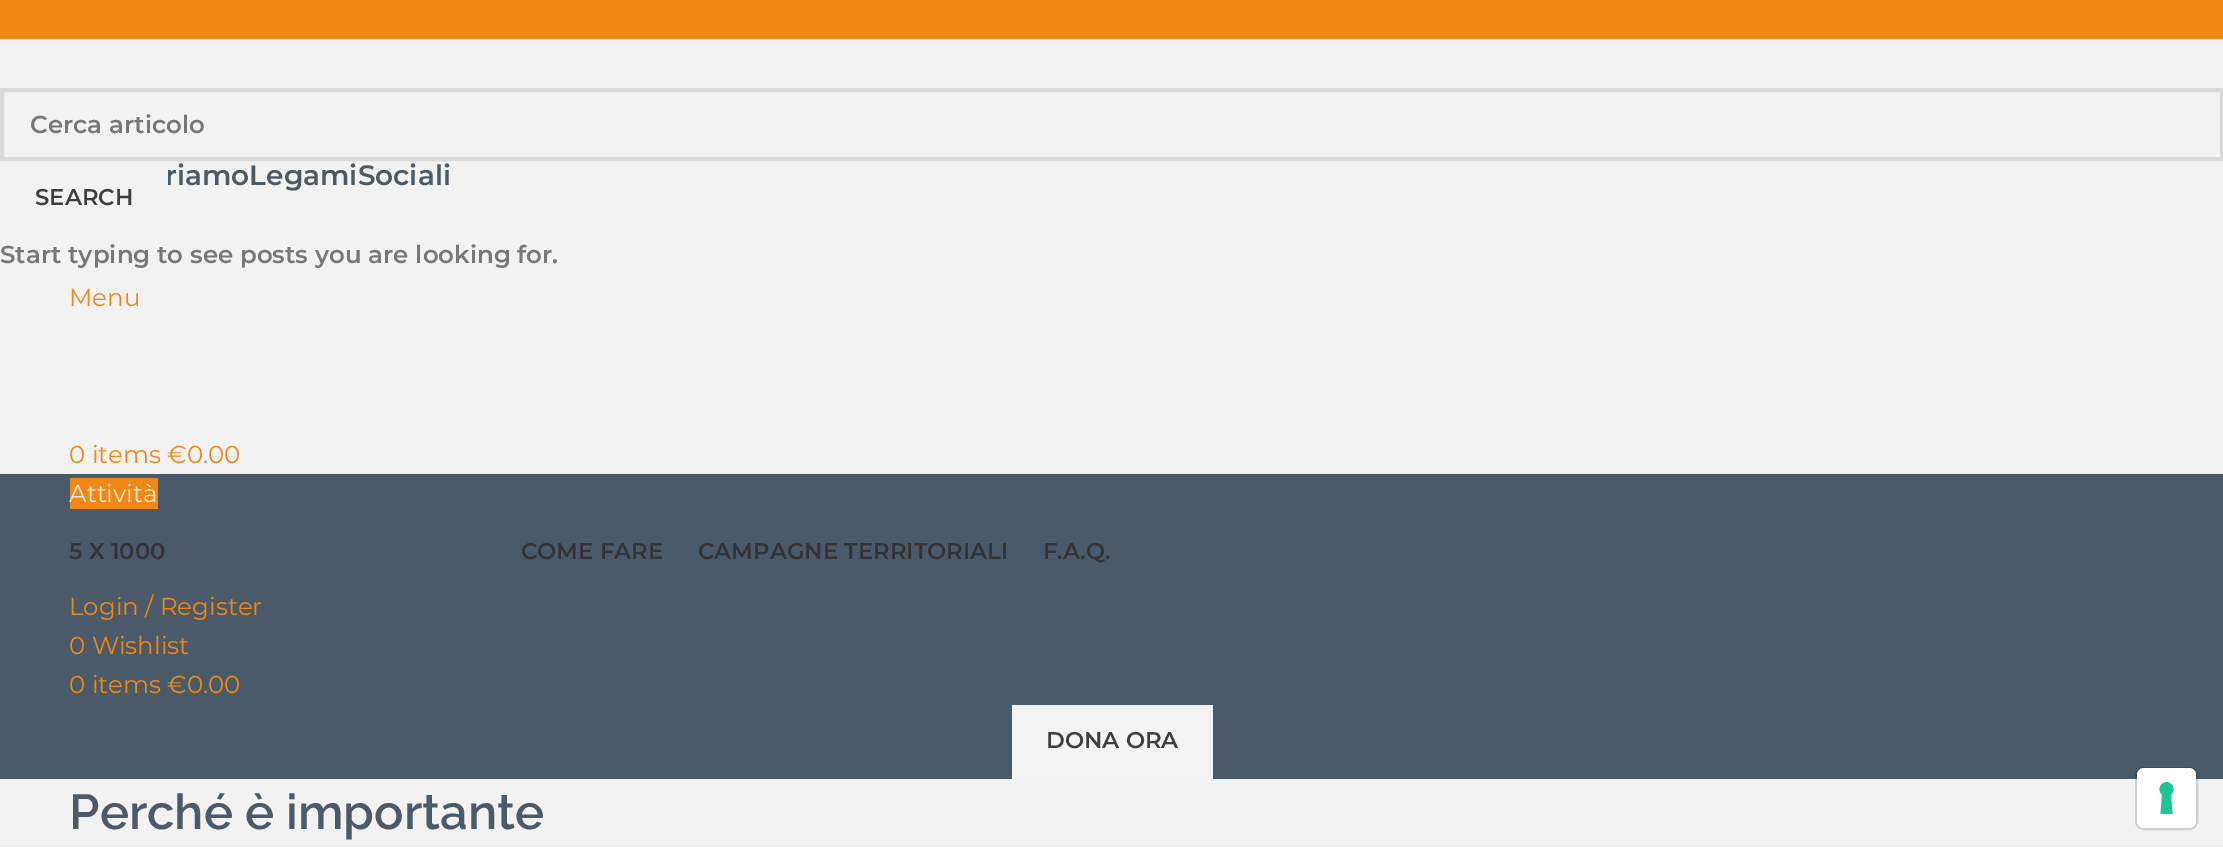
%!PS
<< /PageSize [2223 855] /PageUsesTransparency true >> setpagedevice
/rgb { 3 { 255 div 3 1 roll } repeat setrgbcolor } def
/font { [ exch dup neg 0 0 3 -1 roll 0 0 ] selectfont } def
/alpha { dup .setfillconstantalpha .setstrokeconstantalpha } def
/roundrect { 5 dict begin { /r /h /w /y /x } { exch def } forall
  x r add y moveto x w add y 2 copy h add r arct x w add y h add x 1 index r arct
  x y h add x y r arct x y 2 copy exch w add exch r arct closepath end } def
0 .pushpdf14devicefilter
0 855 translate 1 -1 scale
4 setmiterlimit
255 255 255 rgb
0 0 2223 855 rectfill
242 242 242 rgb
0 39 2223 435 rectfill
218 218 218 rgb
4 setlinewidth
2 90 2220 69 rectstroke
[
  [0 0 2223 39 241 136 21]
  [0 474 2223 305 74 90 105]
  [70 478 88 31 241 136 21]
  [1012 705 201 74 243 243 243]
  [0 779 2223 68 242 242 242]
] { aload pop rgb rectfill } forall
0.15 alpha
0 0 0 rgb
2 setlinewidth
2136 768 61 61 8 roundrect stroke
1 alpha
255 255 255 rgb
2137 768 59 60 7 roundrect fill
28 198 145 rgb
2166.5 782 moveto 2173 782.5 2176 790.5 2171 794.5 curveto 2172.5 814 lineto 2160.5 814 lineto 2162 794.5 lineto 2157 790.5 2160 782.5 2166.5 782 curveto closepath eofill
/Montserrat-SemiBold 24.5 font
119 119 119 rgb
30 133 moveto (Cerca articolo) show
/Montserrat-SemiBold 22.75 font
62 62 62 rgb
35 205 moveto (SEARCH) show
/Montserrat-SemiBold 24.5 font
119 119 119 rgb
0 263 moveto (Start typing to see posts you are looking for.) show
/Montserrat-SemiBold 28 font
74 90 105 rgb
165 185 moveto (riamoLegamiSociali) show
243 243 243 rgb
166 170 2 15 rectfill
/Montserrat-Regular 24.5 font
241 136 21 rgb
69 306 moveto (Menu) show
69 463 moveto (0 items €0.00) show
252 231 208 rgb
69 502 moveto (Attività) show
/Montserrat-SemiBold 22.75 font
51 51 51 rgb
[
  [(5 X 1000) 69 559]
  [(COME FARE) 521 559]
  [(CAMPAGNE TERRITORIALI) 698 559]
  [(F.A.Q.) 1043 559]
] { aload pop moveto show } forall
/Montserrat-Regular 24.5 font
241 136 21 rgb
[
  [(Login / Register) 69 615]
  [(0 Wishlist) 69 654]
  [(0 items €0.00) 69 693]
] { aload pop moveto show } forall
/Montserrat-SemiBold 22.75 font
62 62 62 rgb
1046 748 moveto (DONA ORA) show
/Raleway-SemiBold 49 font
74 90 105 rgb
69 829 moveto (Perché è importante) show
.poppdf14devicefilter showpage
